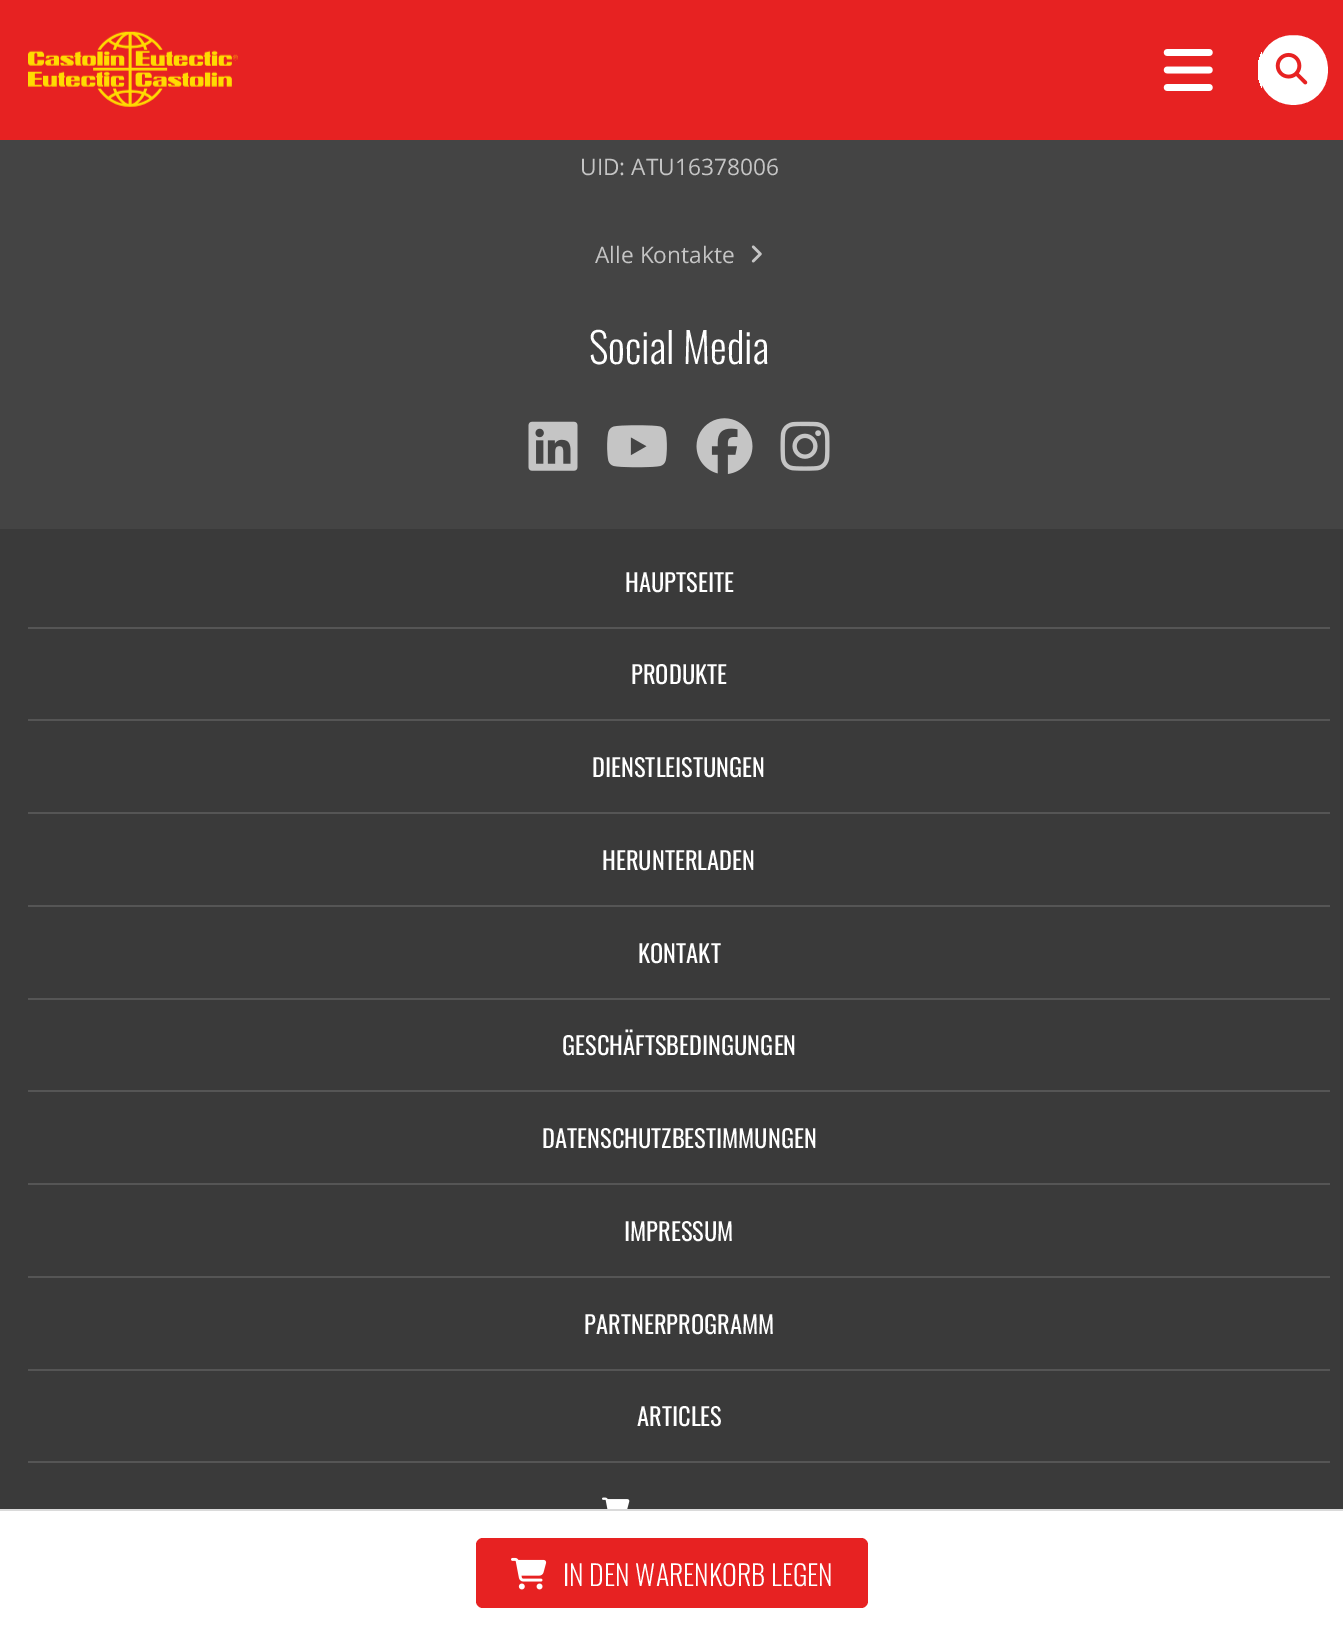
%!PS
<< /PageSize [1343 1636] >> setpagedevice
/rgb { 3 { 255 div 3 1 roll } repeat setrgbcolor } def
/font { [ exch dup neg 0 0 3 -1 roll 0 0 ] selectfont } def
/roundrect { 5 dict begin { /r /h /w /y /x } { exch def } forall
  x r add y moveto x w add y 2 copy h add r arct x w add y h add x 1 index r arct
  x y h add x y r arct x y 2 copy exch w add exch r arct closepath end } def
/picture { 5 dict begin { /h /w /y /x /name } { exch def } forall
  gsave x y translate w h scale
  w h 8 [w 0 0 h 0 0] name (r) file false 3 colorimage grestore end } def
0 1636 translate 1 -1 scale
4 setmiterlimit
68 68 68 rgb
0 0 1343 1636 rectfill
231 34 34 rgb
0 0 1343 140 rectfill
(img/1.rgb) 28 31 210 76 picture
(img/2.rgb) 1163 49 50 42 picture
255 255 255 rgb
1258 34 71 72 34 roundrect gsave fill grestore
231 34 34 rgb
2 setlinewidth
stroke
gsave
1258 35 70 70 33 roundrect clip newpath
255 255 255 rgb
1258 52 4 36 rectfill
grestore
(img/3.rgb) 1275 52 33 33 picture
(img/4.rgb) 751 245 11 18 picture
(img/5.rgb) 528 421 50 50 picture
(img/6.rgb) 607 425 60 43 picture
(img/7.rgb) 696 418 57 56 picture
(img/8.rgb) 780 421 50 50 picture
[
  [0 529 1343 980 58 58 58]
  [28 627 1302 2 85 85 85]
  [28 719 1302 2 85 85 85]
  [28 812 1302 2 85 85 85]
  [28 905 1302 2 85 85 85]
  [28 998 1302 2 85 85 85]
  [28 1090 1302 2 85 85 85]
  [28 1183 1302 2 85 85 85]
  [28 1276 1302 2 85 85 85]
  [28 1369 1302 2 85 85 85]
  [28 1461 1302 2 85 85 85]
] { aload pop rgb rectfill } forall
(img/9.rgb) 602 1497 28 12 picture
255 255 255 rgb
0 1511 1343 125 rectfill
218 218 218 rgb
0 1509 1343 2 rectfill
231 34 34 rgb
476 1538 392 70 7 roundrect fill
(img/10.rgb) 511 1557 36 33 picture
/OpenSans-Regular 22.75 font
197 197 197 rgb
580 175 moveto (UID: ATU16378006) show
595 263 moveto (Alle Kontakte) show
/Oswald-Light 42 font
255 255 255 rgb
589 364 moveto (Social Media) show
/Oswald-Regular 24.5 font
[
  [(HAUPTSEITE) 625 592]
  [(PRODUKTE) 631 684]
  [(DIENSTLEISTUNGEN) 592 777]
  [(HERUNTERLADEN) 602 870]
  [(KONTAKT) 638 963]
  [(GESCHÄFTSBEDINGUNGEN) 562 1055]
  [(DATENSCHUTZBESTIMMUNGEN) 542 1148]
  [(IMPRESSUM) 624 1241]
  [(PARTNERPROGRAMM) 584 1334]
  [(ARTICLES) 637 1426]
] { aload pop moveto show } forall
/Oswald-Light 28 font
563 1586 moveto (IN DEN WARENKORB LEGEN) show
showpage
